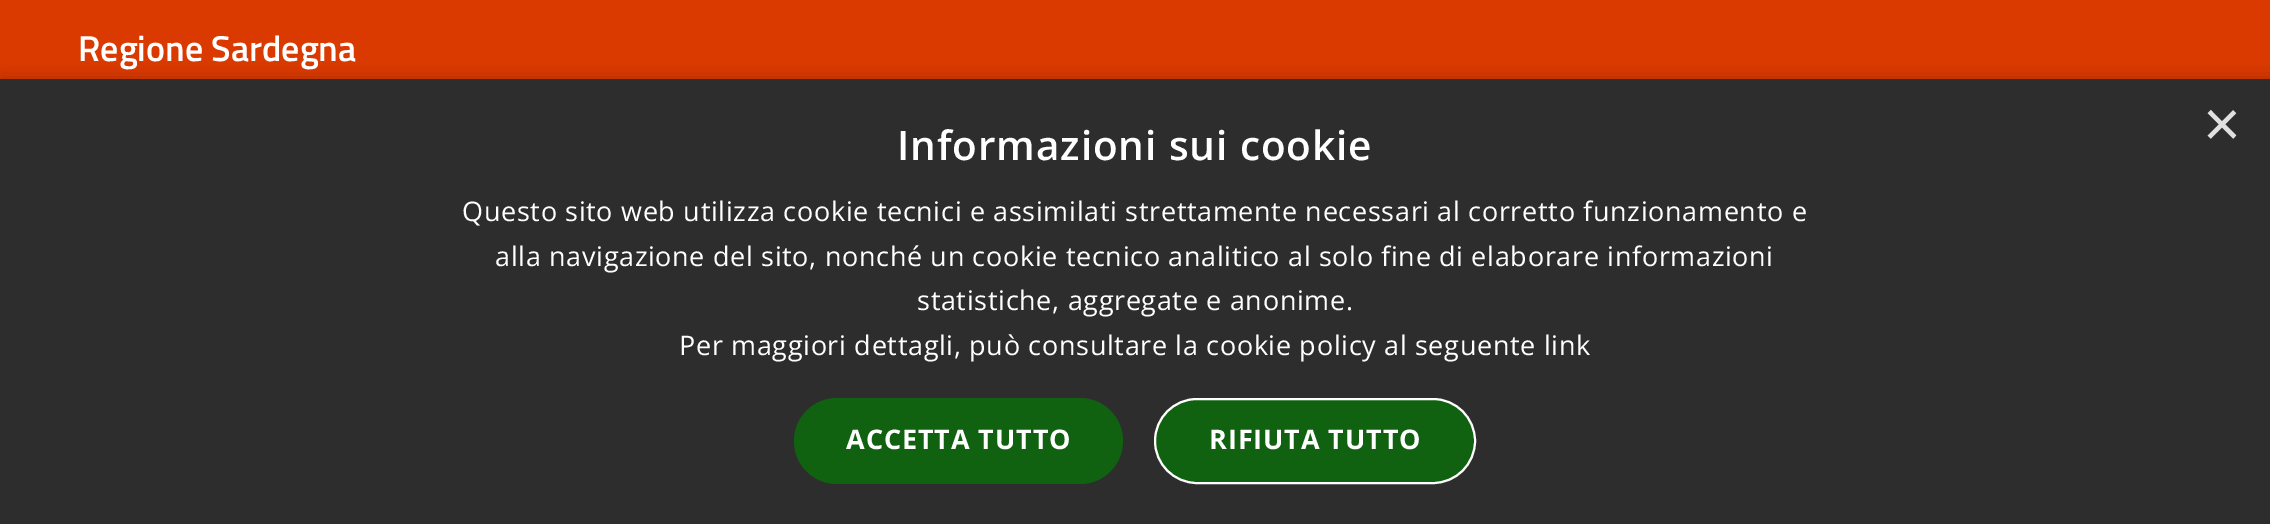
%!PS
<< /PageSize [2270 524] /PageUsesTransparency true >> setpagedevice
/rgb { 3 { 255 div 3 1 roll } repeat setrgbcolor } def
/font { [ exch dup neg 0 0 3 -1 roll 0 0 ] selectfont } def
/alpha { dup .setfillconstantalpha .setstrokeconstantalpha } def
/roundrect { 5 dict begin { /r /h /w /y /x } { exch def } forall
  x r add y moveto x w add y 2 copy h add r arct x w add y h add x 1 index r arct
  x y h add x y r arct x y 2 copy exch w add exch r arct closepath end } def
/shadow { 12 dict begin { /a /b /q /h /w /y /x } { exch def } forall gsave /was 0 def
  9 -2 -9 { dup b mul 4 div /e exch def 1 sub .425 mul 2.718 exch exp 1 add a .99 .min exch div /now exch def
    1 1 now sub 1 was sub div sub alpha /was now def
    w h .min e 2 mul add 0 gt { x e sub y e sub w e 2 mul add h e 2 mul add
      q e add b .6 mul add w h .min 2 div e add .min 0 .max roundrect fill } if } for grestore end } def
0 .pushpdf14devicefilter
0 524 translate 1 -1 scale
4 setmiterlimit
218 58 0 rgb
0 0 2270 524 rectfill
0 0 0 rgb
2 83 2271 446 0 9 0.35 shadow
45 45 45 rgb
0 79 2270 445 rectfill
16 97 16 rgb
794 398 329 86 43 roundrect fill
1155 399 320 84 42 roundrect gsave fill grestore
255 255 255 rgb
2 setlinewidth
stroke
/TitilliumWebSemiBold-SemiBold 36 font
78 61 moveto (Regione Sardegna) show
/LiberationSans-Regular 65 font
224 224 224 rgb
2203 146 moveto (×) show
/OpenSans-SemiBold 40.5 font
255 255 255 rgb
897 160 moveto 0.9 0 (Informazioni sui cookie) ashow
/OpenSans-Regular 27 font
462 221 moveto 0.67 0 (Questo sito web utilizza cookie tecnici e assimilati strettamente necessari al corretto funzionamento e) ashow
495 266 moveto 0.67 0 (alla navigazione del sito, nonché un cookie tecnico analitico al solo fine di elaborare informazioni) ashow
917 310 moveto 0.67 0 (statistiche, aggregate e anonime.) ashow
679 355 moveto 0.67 0 (Per maggiori dettagli, può consultare la cookie policy al seguente link) ashow
/OpenSans-Bold 27 font
846 449 moveto 0.9 0 (ACCETTA TUTTO) ashow
1209 449 moveto 0.9 0 (RIFIUTA TUTTO) ashow
.poppdf14devicefilter showpage
